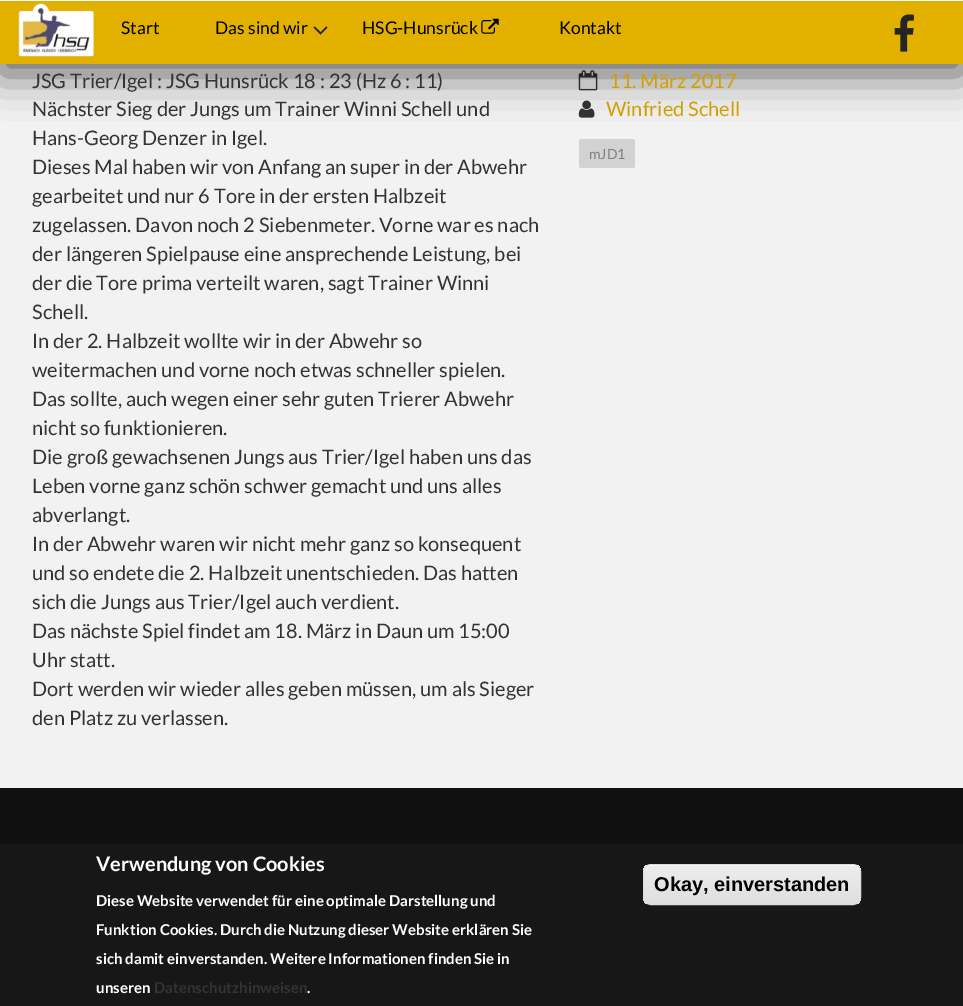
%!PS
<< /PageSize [963 1006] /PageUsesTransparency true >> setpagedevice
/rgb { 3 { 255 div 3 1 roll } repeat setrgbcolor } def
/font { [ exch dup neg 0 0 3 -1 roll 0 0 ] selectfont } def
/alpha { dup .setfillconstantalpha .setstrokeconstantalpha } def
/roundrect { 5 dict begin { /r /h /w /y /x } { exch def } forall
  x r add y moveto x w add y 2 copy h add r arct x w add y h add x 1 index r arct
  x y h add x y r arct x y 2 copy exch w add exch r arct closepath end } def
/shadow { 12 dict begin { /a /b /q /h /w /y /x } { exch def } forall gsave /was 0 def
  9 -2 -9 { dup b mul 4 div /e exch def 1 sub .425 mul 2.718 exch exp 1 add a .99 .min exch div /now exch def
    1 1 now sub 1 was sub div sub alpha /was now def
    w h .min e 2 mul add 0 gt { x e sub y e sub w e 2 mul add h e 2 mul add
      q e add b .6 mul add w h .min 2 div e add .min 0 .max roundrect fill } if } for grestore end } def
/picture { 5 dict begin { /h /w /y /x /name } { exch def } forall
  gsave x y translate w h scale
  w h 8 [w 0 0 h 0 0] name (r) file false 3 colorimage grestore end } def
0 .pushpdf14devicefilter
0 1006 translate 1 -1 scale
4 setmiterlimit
242 242 242 rgb
0 0 963 1006 rectfill
(img/5.rgb) 578 70 20 21 picture
(img/6.rgb) 578 100 17 18 picture
0 0 0 rgb
0 10 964 64 0 21 0.6 shadow
0.95 alpha
255 255 255 rgb
0 0 963 1 rectfill
1 alpha
226 177 0 rgb
0 1 963 63 rectfill
(img/1.rgb) 18 3 76 54 picture
(img/2.rgb) 313 26 15 9 picture
(img/3.rgb) 481 18 18 16 picture
(img/4.rgb) 894 14 20 38 picture
210 210 210 rgb
579 139 56 29 2.5 roundrect fill
16 16 16 rgb
0 788 963 56 rectfill
23 23 23 rgb
0 844 963 162 rectfill
gsave
643 864 218 41 8 roundrect clip newpath
gsave 643 865 moveto 861 865 lineto 861 904 lineto 643 904 lineto closepath clip newpath
<< /ShadingType 2 /ColorSpace /DeviceRGB /Coords [752 865 752 904] /Extend [true true] /Function << /FunctionType 3 /Domain [0 1] /Functions [<< /FunctionType 2 /Domain [0 1] /C0 [0.929 0.929 0.929] /C1 [0.929 0.929 0.929] /N 1 >> << /FunctionType 2 /Domain [0 1] /C0 [0.929 0.929 0.929] /C1 [0.875 0.875 0.875] /N 1 >>] /Bounds [0.05] /Encode [0 1 0 1] >> >> shfill grestore
grestore
255 255 255 rgb
650 866 moveto 854 866 lineto 857 866 860 869 860 872 curveto 860 869 859 866 855 865 curveto 650 865 lineto 646 865 644 868 644 872 curveto 644 869 647 866 650 866 curveto closepath fill
220 220 220 rgb
643.5 864.5 217 40 7.5 roundrect stroke
/Lato-Regular 17.5 font
0 0 0 rgb
[
  [(Start) 121 34]
  [(Das sind wir) 215 34]
  [(HSG-Hunsrück) 362 34]
  [(Kontakt) 559 34]
] { aload pop moveto show } forall
/Lato-Regular 20 font
51 51 51 rgb
[
  [(JSG Trier/Igel : JSG Hunsrück 18 : 23 \(Hz 6 : 11\)) 32 88]
  [(Nächster Sieg der Jungs um Trainer Winni Schell und) 32 116]
  [(Hans-Georg Denzer in Igel.) 32 145]
  [(Dieses Mal haben wir von Anfang an super in der Abwehr) 32 174]
  [(gearbeitet und nur 6 Tore in der ersten Halbzeit) 32 203]
  [(zugelassen. Davon noch 2 Siebenmeter. Vorne war es nach) 32 232]
  [(der längeren Spielpause eine ansprechende Leistung, bei) 32 261]
  [(der die Tore prima verteilt waren, sagt Trainer Winni) 32 290]
  [(Schell.) 32 319]
  [(In der 2. Halbzeit wollte wir in der Abwehr so) 32 348]
  [(weitermachen und vorne noch etwas schneller spielen.) 32 377]
  [(Das sollte, auch wegen einer sehr guten Trierer Abwehr) 32 406]
  [(nicht so funktionieren.) 32 435]
  [(Die groß gewachsenen Jungs aus Trier/Igel haben uns das) 32 464]
  [(Leben vorne ganz schön schwer gemacht und uns alles) 32 493]
  [(abverlangt.) 32 522]
  [(In der Abwehr waren wir nicht mehr ganz so konsequent) 32 551]
  [(und so endete die 2. Halbzeit unentschieden. Das hatten) 32 580]
  [(sich die Jungs aus Trier/Igel auch verdient.) 32 609]
  [(Das nächste Spiel findet am 18. März in Daun um 15:00) 32 638]
  [(Uhr statt.) 32 667]
  [(Dort werden wir wieder alles geben müssen, um als Sieger) 32 696]
  [(den Platz zu verlassen.) 32 725]
] { aload pop moveto show } forall
209 160 0 rgb
609 88 moveto (11. März 2017) show
606 116 moveto (Winfried Schell) show
/Lato-Regular 14 font
125 125 125 rgb
589 159 moveto (mJD1) show
/Lato-Bold 20 font
255 255 255 rgb
96 871 moveto (Verwendung von Cookies) show
/Lato-Bold 15 font
[
  [(Diese Website verwendet für eine optimale Darstellung und) 96 906]
  [(Funktion Cookies. Durch die Nutzung dieser Website erklären Sie) 96 935]
  [(sich damit einverstanden. Weitere Informationen finden Sie in) 96 964]
  [(unseren) 96 993]
] { aload pop moveto show } forall
51 51 51 rgb
154 993 moveto (Datenschutzhinweisen) show
255 255 255 rgb
307 993 moveto (.) show
/LiberationSans-Bold 20 font
0 0 0 rgb
654 891 moveto (Okay, einverstanden) show
.poppdf14devicefilter showpage
